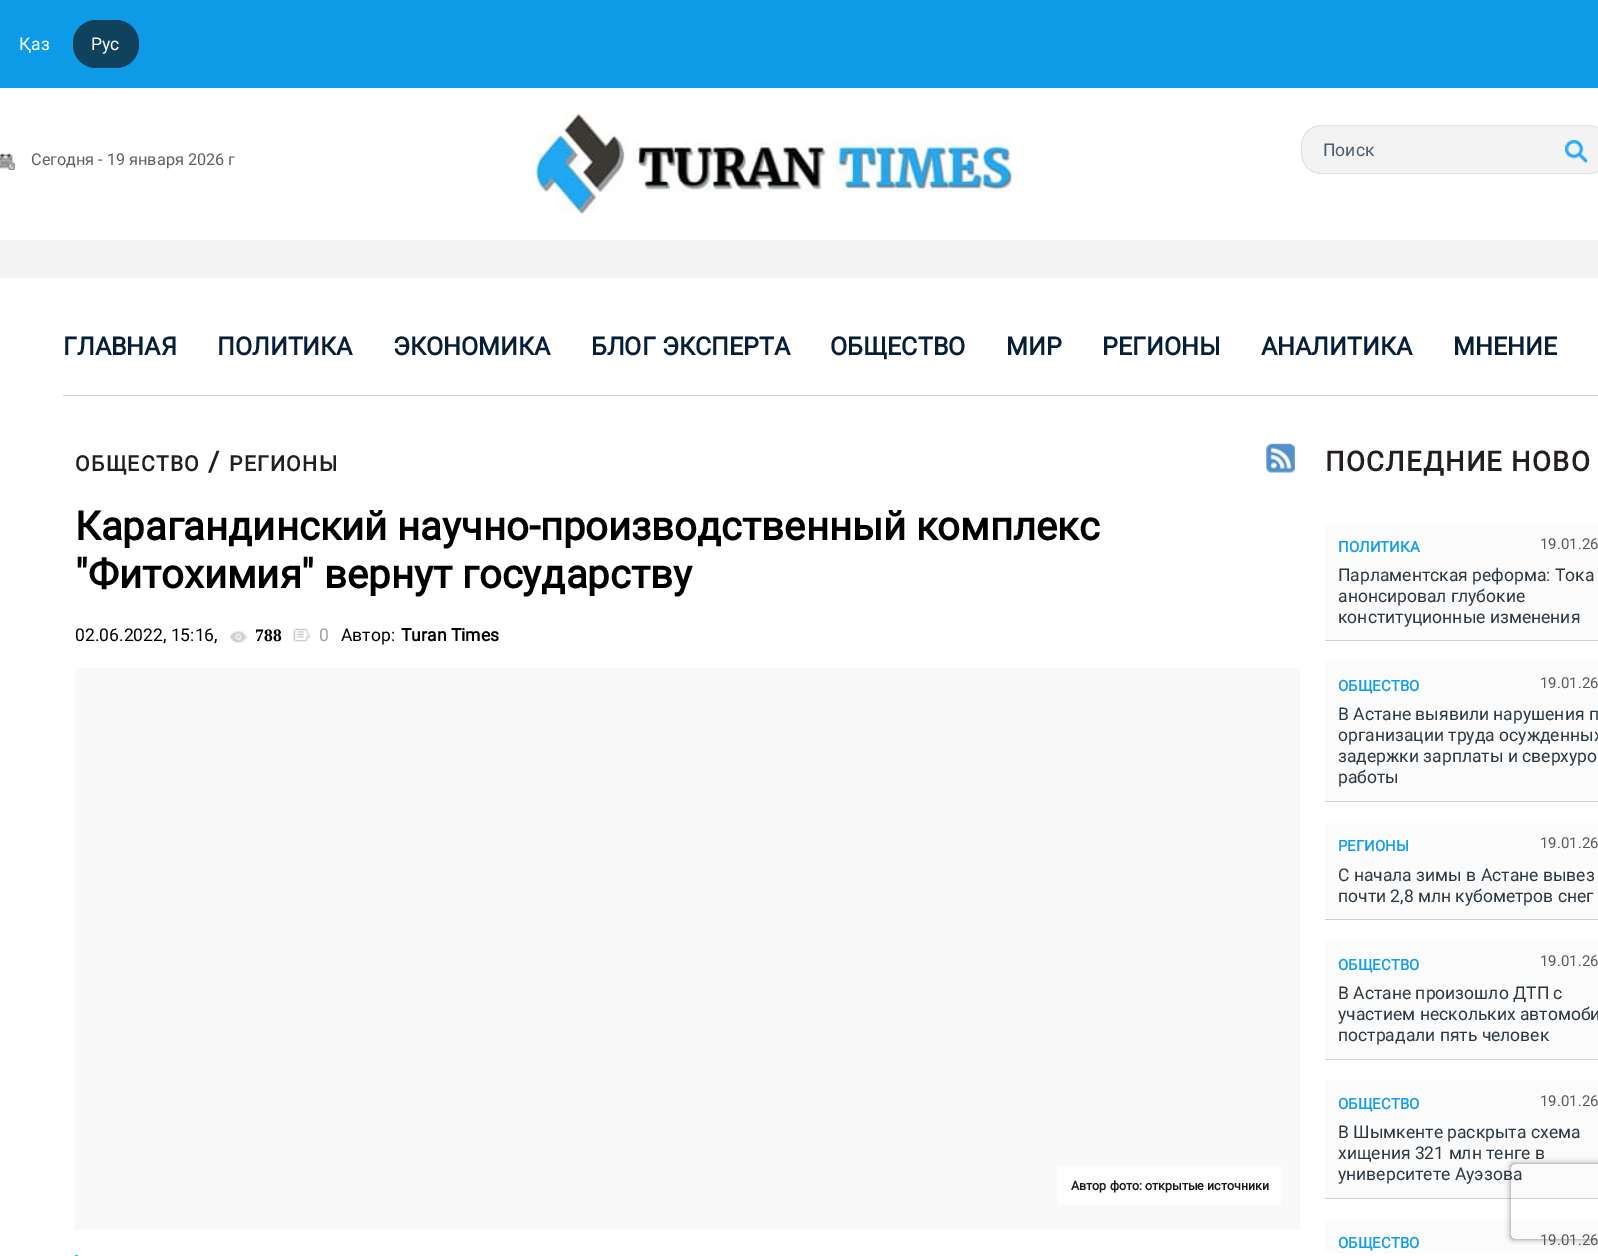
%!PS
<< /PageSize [1598 1256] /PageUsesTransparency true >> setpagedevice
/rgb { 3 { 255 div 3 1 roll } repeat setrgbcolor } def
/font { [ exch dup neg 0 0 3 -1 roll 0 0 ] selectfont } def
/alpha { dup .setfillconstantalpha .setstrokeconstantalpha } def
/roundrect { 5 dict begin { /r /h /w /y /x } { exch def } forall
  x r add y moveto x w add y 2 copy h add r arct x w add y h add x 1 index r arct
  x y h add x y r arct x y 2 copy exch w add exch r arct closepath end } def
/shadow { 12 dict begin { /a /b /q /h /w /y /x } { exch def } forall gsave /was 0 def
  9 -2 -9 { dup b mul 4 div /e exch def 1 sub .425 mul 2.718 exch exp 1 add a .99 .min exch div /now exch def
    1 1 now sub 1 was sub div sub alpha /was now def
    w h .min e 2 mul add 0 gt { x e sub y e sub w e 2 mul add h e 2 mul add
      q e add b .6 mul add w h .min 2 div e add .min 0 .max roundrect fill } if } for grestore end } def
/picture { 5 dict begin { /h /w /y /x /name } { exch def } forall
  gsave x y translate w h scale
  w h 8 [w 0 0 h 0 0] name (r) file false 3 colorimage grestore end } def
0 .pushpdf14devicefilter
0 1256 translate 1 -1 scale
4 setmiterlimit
243 243 243 rgb
0 0 1598 1256 rectfill
13 154 231 rgb
0 0 1598 88 rectfill
16 65 93 rgb
73 20 66 48 23 roundrect fill
255 255 255 rgb
0 88 1598 152 rectfill
(img/1.rgb) 536 112 476 102 picture
243 243 243 rgb
1301.5 125.5 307 48 19.5 roundrect gsave fill grestore
224 227 226 rgb
stroke
(img/2.rgb) 1565 140 23 23 picture
(img/3.rgb) 0 153 15 17 picture
255 255 255 rgb
0 278 1598 978 rectfill
204 204 204 rgb
63 395 1535 1 rectfill
(img/4.rgb) 230 631 18 12 picture
(img/5.rgb) 293 628 18 14 picture
[
  [75 668 1225 562 249 249 249]
  [1058 1166 223 39 254 254 254]
  [75 1255 3 1 13 199 246]
] { aload pop rgb rectfill } forall
(img/6.rgb) 1266 443 29 30 picture
[
  [1325 523 273 117 251 251 251]
  [1325 640 273 1 208 208 208]
  [1325 661 273 142 251 251 251]
  [1325 801 273 1 208 208 208]
  [1325 823 273 96 251 251 251]
  [1325 919 273 1 208 208 208]
  [1325 940 273 119 251 251 251]
  [1325 1059 273 1 208 208 208]
  [1325 1080 273 118 251 251 251]
  [1325 1198 273 1 208 208 208]
  [1325 1219 273 34 251 251 251]
] { aload pop rgb rectfill } forall
gsave
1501 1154 moveto 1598 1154 lineto 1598 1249 lineto 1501 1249 lineto closepath 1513.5 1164 moveto 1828.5 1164 lineto 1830 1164 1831 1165 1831 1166.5 curveto 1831 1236.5 lineto 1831 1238 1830 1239 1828.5 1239 curveto 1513.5 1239 lineto 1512 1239 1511 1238 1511 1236.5 curveto 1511 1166.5 lineto 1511 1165 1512 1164 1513.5 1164 curveto closepath eoclip newpath
128 128 128 rgb
1511 1164 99 75 2.5 3 1 shadow
grestore
/Roboto-Regular 17.5 font
255 255 255 rgb
19 50 moveto (Қаз) show
91 50 moveto (Рус) show
77 95 111 rgb
1323 156 moveto (Поиск) show
/Roboto-Regular 16.25 font
95 95 95 rgb
31 165 moveto (Сегодня - 19 января 2026 г) show
/Roboto-Bold 25 font
6 31 55 rgb
[
  [(ГЛАВНАЯ) 63 355]
  [(ПОЛИТИКА) 217 355]
  [(ЭКОНОМИКА) 393 355]
  [(БЛОГ ЭКСПЕРТА) 591 355]
  [(ОБЩЕСТВО) 830 355]
  [(МИР) 1006 355]
  [(РЕГИОНЫ) 1102 355]
  [(АНАЛИТИКА) 1261 355]
  [(МНЕНИЕ) 1453 355]
] { aload pop moveto show } forall
/Roboto-Bold 21.25 font
35 31 32 rgb
75 471 moveto 1.25 0 (ОБЩЕСТВО) ashow
/Roboto-Bold 27.5 font
208 471 moveto 1.25 0 (/) ashow
/Roboto-Bold 21.25 font
229 471 moveto 1.25 0 (РЕГИОНЫ) ashow
/Roboto-Bold 40 font
0 0 0 rgb
75 540 moveto (Карагандинский научно-производственный комплекс) show
75 588 moveto ("Фитохимия" вернут государству) show
/Roboto-Regular 17.5 font
75 641 moveto (02.06.2022, 15:16,) show
/LiberationSerif-Bold 17.5 font
255 641 moveto (788) show
/Roboto-Regular 17.5 font
159 159 159 rgb
319 641 moveto (0) show
0 0 0 rgb
341 641 moveto (Автор:) show
/Roboto-Bold 17.5 font
401 641 moveto (Turan Times) show
/Roboto-Bold 12.5 font
25 25 25 rgb
1071 1190 moveto (Автор фото: открытые источники) show
/Roboto-Bold 27.5 font
35 31 32 rgb
1325 471 moveto 1.25 0 (ПОСЛЕДНИЕ НОВО) ashow
/Roboto-Bold 15 font
18 158 235 rgb
1338 552 moveto (ПОЛИТИКА) show
/Roboto-Regular 15 font
92 88 89 rgb
1540 549 moveto (19.01.26) show
/Roboto-Regular 17.5 font
45 57 66 rgb
[
  [(Парламентская реформа: Тока) 1338 581]
  [(анонсировал глубокие) 1338 602]
  [(конституционные изменения) 1338 623]
] { aload pop moveto show } forall
/Roboto-Bold 15 font
18 158 235 rgb
1338 691 moveto (ОБЩЕСТВО) show
/Roboto-Regular 15 font
92 88 89 rgb
1540 688 moveto (19.01.26) show
/Roboto-Regular 17.5 font
45 57 66 rgb
[
  [(В Астане выявили нарушения п) 1338 720]
  [(организации труда осужденных) 1338 741]
  [(задержки зарплаты и сверхуро) 1338 762]
  [(работы) 1338 783]
] { aload pop moveto show } forall
/Roboto-Bold 15 font
18 158 235 rgb
1338 851 moveto (РЕГИОНЫ) show
/Roboto-Regular 15 font
92 88 89 rgb
1540 848 moveto (19.01.26) show
/Roboto-Regular 17.5 font
45 57 66 rgb
1338 881 moveto (С начала зимы в Астане вывез) show
1338 902 moveto (почти 2,8 млн кубометров снег) show
/Roboto-Bold 15 font
18 158 235 rgb
1338 970 moveto (ОБЩЕСТВО) show
/Roboto-Regular 15 font
92 88 89 rgb
1540 966 moveto (19.01.26) show
/Roboto-Regular 17.5 font
45 57 66 rgb
[
  [(В Астане произошло ДТП с) 1338 999]
  [(участием нескольких автомоби) 1338 1020]
  [(пострадали пять человек) 1338 1041]
] { aload pop moveto show } forall
/Roboto-Bold 15 font
18 158 235 rgb
1338 1109 moveto (ОБЩЕСТВО) show
/Roboto-Regular 15 font
92 88 89 rgb
1540 1106 moveto (19.01.26) show
/Roboto-Regular 17.5 font
45 57 66 rgb
[
  [(В Шымкенте раскрыта схема) 1338 1138]
  [(хищения 321 млн тенге в) 1338 1159]
  [(университете Ауэзова) 1338 1180]
] { aload pop moveto show } forall
/Roboto-Bold 15 font
18 158 235 rgb
1338 1248 moveto (ОБЩЕСТВО) show
/Roboto-Regular 15 font
92 88 89 rgb
1540 1245 moveto (19.01.26) show
.poppdf14devicefilter showpage
